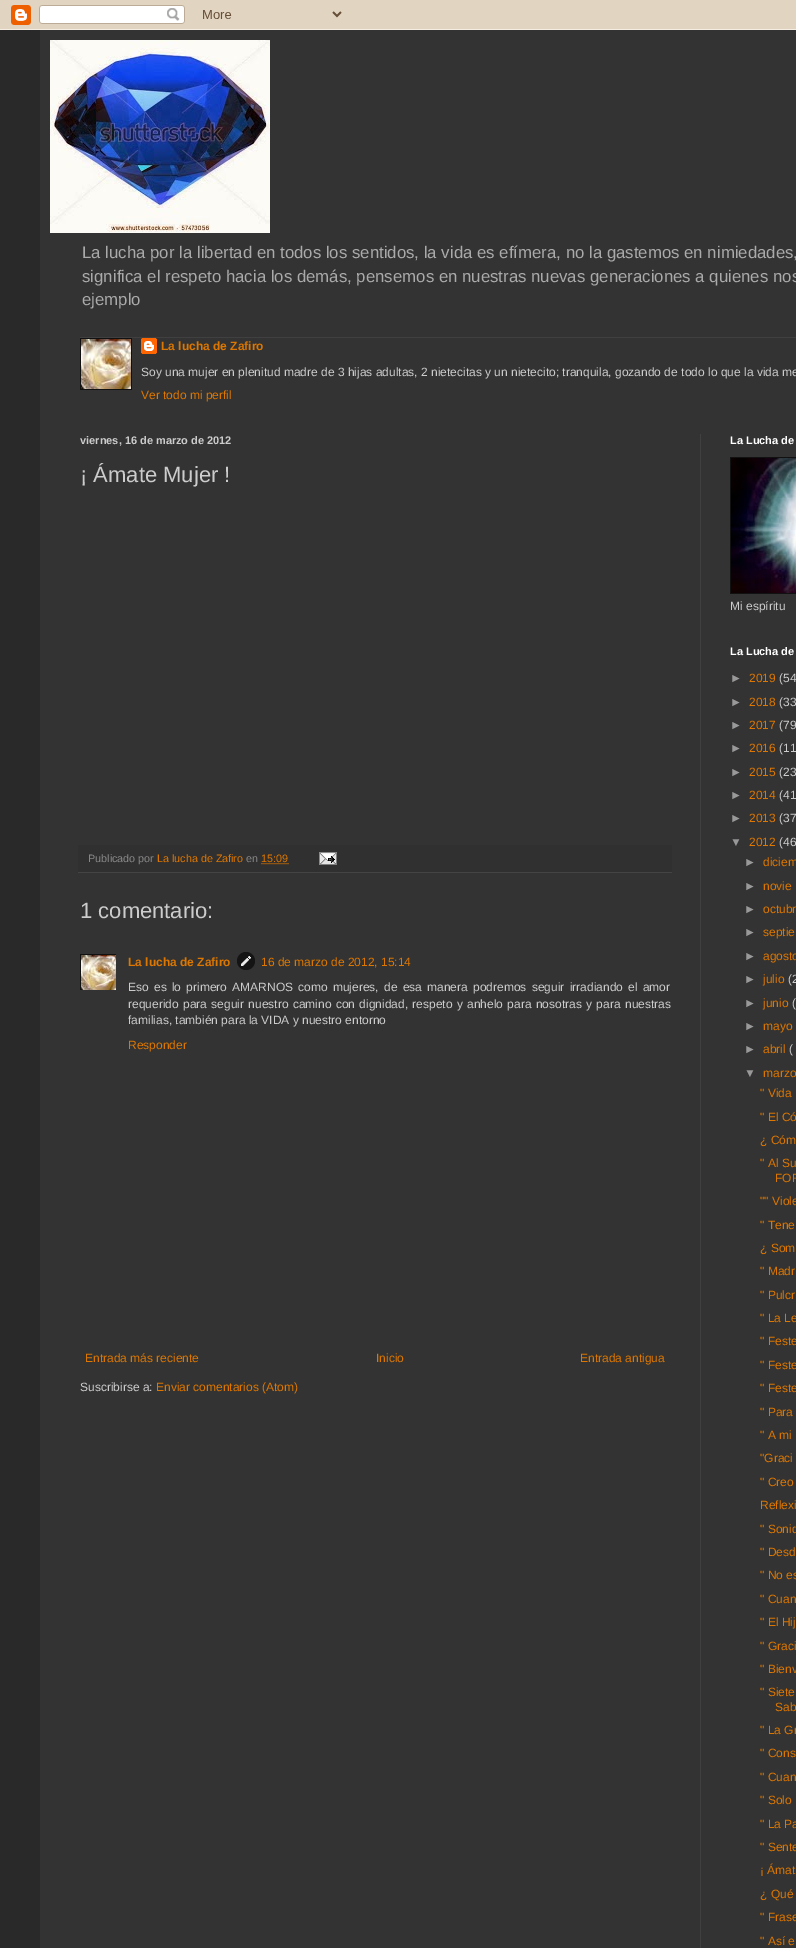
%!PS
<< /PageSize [796 1948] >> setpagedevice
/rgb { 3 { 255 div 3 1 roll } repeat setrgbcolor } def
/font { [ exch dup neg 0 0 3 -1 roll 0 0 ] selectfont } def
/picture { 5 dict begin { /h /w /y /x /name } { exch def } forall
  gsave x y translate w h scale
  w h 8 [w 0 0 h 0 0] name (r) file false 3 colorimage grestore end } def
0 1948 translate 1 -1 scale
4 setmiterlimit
41 41 41 rgb
0 0 796 1948 rectfill
(img/1.rgb) 0 0 796 30 picture
51 51 51 rgb
40 30 756 1918 rectfill
(img/2.rgb) 50 40 220 193 picture
64 64 64 rgb
80 337 716 1 rectfill
17 17 17 rgb
80 338 52 52 rectfill
(img/3.rgb) 81 339 50 50 picture
(img/4.rgb) 141 338 16 16 picture
[
  [700 434 1 1514 64 64 64]
  [78 845 594 27 48 48 48]
  [78 872 594 1 68 68 68]
] { aload pop rgb rectfill } forall
221 119 0 rgb
[1 1] 0 setdash
261.5 863.5 moveto 288.5 863.5 lineto stroke
(img/5.rgb) 319 852 18 13 picture
gsave
80 954 36 36 rectclip
17 17 17 rgb
[] 0 setdash
80.5 954.5 36 36 rectstroke
grestore
(img/6.rgb) 81 955 35 35 picture
(img/7.rgb) 237 952 18 18 picture
17 17 17 rgb
730 457 66 137 rectfill
(img/8.rgb) 731 458 65 135 picture
/LiberationSans-Regular 16.8 font
170 170 170 rgb
[
  [(La lucha por la libertad en todos los sentidos, la vida es efímera, no la gastemos en nimiedades,) 82 258]
  [(significa el respeto hacia los demás, pensemos en nuestras nuevas generaciones a quienes nos) 82 282]
  [(ejemplo) 82 305]
] { aload pop moveto show } forall
/LiberationSans-Bold 12 font
221 119 0 rgb
161 350 moveto (La lucha de Zafiro) show
/LiberationSans-Regular 12 font
204 204 204 rgb
141 376 moveto (Soy una mujer en plenitud madre de 3 hijas adultas, 2 nietecitas y un nietecito; tranquila, gozando de todo lo que la vida me) show
221 119 0 rgb
141 399 moveto (Ver todo mi perfil) show
/LiberationSans-Bold 11 font
204 204 204 rgb
80 444 moveto (viernes, 16 de marzo de 2012) show
/LiberationSans-Regular 22 font
80 482 moveto (¡ Ámate Mujer !) show
/LiberationSans-Regular 10.75 font
136 136 136 rgb
88 862 moveto (Publicado por) show
221 119 0 rgb
157 862 moveto (La lucha de Zafiro) show
136 136 136 rgb
246 862 moveto (en) show
221 119 0 rgb
261 862 moveto (15:09) show
/LiberationSans-Regular 22 font
204 204 204 rgb
80 918 moveto (1 comentario:) show
/LiberationSans-Bold 12 font
221 119 0 rgb
128 966 moveto (La lucha de Zafiro) show
/LiberationSans-Regular 12 font
261 966 moveto (16 de marzo de 2012, 15:14) show
204 204 204 rgb
128 991 moveto 1.9 0 32 (Eso es lo primero AMARNOS como mujeres, de esa manera podremos seguir irradiando el amor) widthshow
128 1008 moveto 1 0 32 (requerido para seguir nuestro camino con dignidad, respeto y anhelo para nosotras y para nuestras) widthshow
128 1024 moveto (familias, también para la VIDA y nuestro entorno) show
221 119 0 rgb
[
  [(Responder) 128 1049]
  [(Entrada más reciente) 85 1362]
  [(Inicio) 376 1362]
  [(Entrada antigua) 580 1362]
] { aload pop moveto show } forall
204 204 204 rgb
80 1391 moveto (Suscribirse a:) show
221 119 0 rgb
156 1391 moveto (Enviar comentarios \(Atom\)) show
/LiberationSans-Bold 11 font
255 255 255 rgb
730 444 moveto (La Lucha de) show
/LiberationSans-Regular 12 font
204 204 204 rgb
730 610 moveto (Mi espíritu) show
/LiberationSans-Bold 11 font
255 255 255 rgb
730 655 moveto (La Lucha de) show
/LiberationSans-Regular 12 font
153 153 153 rgb
730 682 moveto (►) show
221 119 0 rgb
749 682 moveto (2019) show
204 204 204 rgb
779 682 moveto (\(54) show
153 153 153 rgb
730 706 moveto (►) show
221 119 0 rgb
749 706 moveto (2018) show
204 204 204 rgb
779 706 moveto (\(33) show
153 153 153 rgb
730 729 moveto (►) show
221 119 0 rgb
749 729 moveto (2017) show
204 204 204 rgb
779 729 moveto (\(79) show
153 153 153 rgb
730 752 moveto (►) show
221 119 0 rgb
749 752 moveto (2016) show
204 204 204 rgb
779 752 moveto (\(11) show
153 153 153 rgb
730 776 moveto (►) show
221 119 0 rgb
749 776 moveto (2015) show
204 204 204 rgb
779 776 moveto (\(23) show
153 153 153 rgb
730 799 moveto (►) show
221 119 0 rgb
749 799 moveto (2014) show
204 204 204 rgb
779 799 moveto (\(41) show
153 153 153 rgb
730 822 moveto (►) show
221 119 0 rgb
749 822 moveto (2013) show
204 204 204 rgb
779 822 moveto (\(37) show
153 153 153 rgb
730 846 moveto (▼) show
221 119 0 rgb
749 846 moveto (2012) show
204 204 204 rgb
779 846 moveto (\(46) show
153 153 153 rgb
744 866 moveto (►) show
221 119 0 rgb
763 866 moveto (diciem) show
153 153 153 rgb
744 890 moveto (►) show
221 119 0 rgb
763 890 moveto (novie) show
153 153 153 rgb
744 913 moveto (►) show
221 119 0 rgb
763 913 moveto (octubr) show
153 153 153 rgb
744 936 moveto (►) show
221 119 0 rgb
763 936 moveto (septie) show
153 153 153 rgb
744 960 moveto (►) show
221 119 0 rgb
763 960 moveto (agosto) show
153 153 153 rgb
744 983 moveto (►) show
221 119 0 rgb
763 983 moveto (julio) show
204 204 204 rgb
788 983 moveto (\(2) show
153 153 153 rgb
744 1007 moveto (►) show
221 119 0 rgb
763 1007 moveto (junio) show
204 204 204 rgb
792 1007 moveto (\() show
153 153 153 rgb
744 1030 moveto (►) show
221 119 0 rgb
763 1030 moveto (mayo) show
153 153 153 rgb
744 1053 moveto (►) show
221 119 0 rgb
763 1053 moveto (abril) show
204 204 204 rgb
789 1053 moveto (\() show
153 153 153 rgb
744 1077 moveto (▼) show
221 119 0 rgb
[
  [(marzo) 763 1077]
  [(" Vida) 760 1097]
  [(" El Có) 760 1121]
  [(¿ Cóm) 760 1144]
  [(" Al Su) 760 1167]
  [(FOR) 775 1182]
  [("" Viole) 760 1205]
  [(" Tene) 760 1229]
  [(¿ Som) 760 1252]
  [(" Madr) 760 1275]
  [(" Pulcr) 760 1299]
  [(" La Le) 760 1322]
  [(" Feste) 760 1345]
  [(" Feste) 760 1369]
  [(" Feste) 760 1392]
  [(" Para) 760 1416]
  [(" A mi) 760 1439]
  [("Graci) 760 1462]
  [(" Creo) 760 1486]
  [(Reflexi) 760 1509]
  [(" Sonid) 760 1533]
  [(" Desd) 760 1556]
  [(" No es) 760 1579]
  [(" Cuan) 760 1603]
  [(" El Hij) 760 1626]
  [(" Graci) 760 1650]
  [(" Bienv) 760 1673]
  [(" Siete) 760 1696]
  [(Sab) 775 1711]
  [(" La Gr) 760 1734]
  [(" Cons) 760 1757]
  [(" Cuan) 760 1781]
  [(" Solo) 760 1804]
  [(" La Pa) 760 1828]
  [(" Sente) 760 1851]
  [(¡ Ámat) 760 1874]
  [(¿ Qué) 760 1898]
  [(" Frase) 760 1921]
  [(" Así e) 760 1945]
] { aload pop moveto show } forall
showpage
